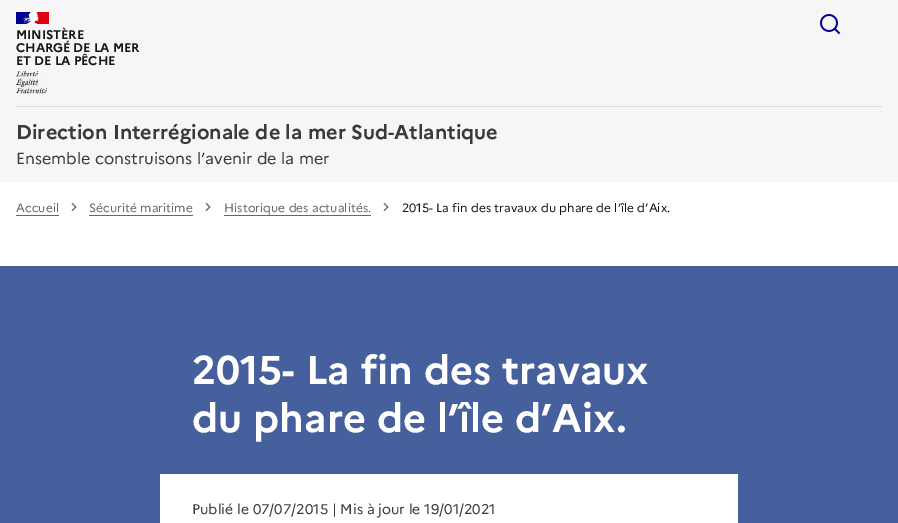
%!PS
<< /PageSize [898 523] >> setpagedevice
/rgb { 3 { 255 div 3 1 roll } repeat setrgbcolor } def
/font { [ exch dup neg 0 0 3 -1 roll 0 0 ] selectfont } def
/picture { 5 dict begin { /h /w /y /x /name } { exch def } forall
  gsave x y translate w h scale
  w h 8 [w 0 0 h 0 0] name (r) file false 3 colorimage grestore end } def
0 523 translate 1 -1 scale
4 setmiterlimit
255 255 255 rgb
0 0 898 523 rectfill
246 246 246 rgb
0 0 898 182 rectfill
(img/1.rgb) 820 14 21 21 picture
0 0 145 rgb
16 12 16 12 rectfill
225 0 15 rgb
34 12 15 12 rectfill
(img/2.rgb) 23 12 16 12 picture
(img/3.rgb) 16 71 31 23 picture
221 221 221 rgb
16 106 866 1 rectfill
102 102 102 rgb
16 215 43 1 rectfill
(img/4.rgb) 71 202 6 10 picture
89 215 104 1 rectfill
(img/4.rgb) 205 202 6 10 picture
224 215 147 1 rectfill
(img/4.rgb) 383 202 6 10 picture
70 95 157 rgb
0 266 898 257 rectfill
255 255 255 rgb
160 474 578 49 rectfill
/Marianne-Bold 12.5 font
22 22 22 rgb
16 39 moveto -0.1 0 (MINISTÈRE) ashow
16 52 moveto -0.1 0 (CHARGÉ DE LA MER) ashow
16 65 moveto -0.1 0 (ET DE LA PÊCHE) ashow
/Marianne-Bold 20 font
58 58 58 rgb
16 139 moveto (Direction Interrégionale de la mer Sud-Atlantique) show
/Marianne-Regular 16 font
16 164 moveto (Ensemble construisons l’avenir de la mer) show
/Marianne-Regular 12 font
102 102 102 rgb
[
  [(Accueil) 16 212]
  [(Sécurité maritime) 89 212]
  [(Historique des actualités.) 224 212]
] { aload pop moveto show } forall
22 22 22 rgb
402 212 moveto (2015- La fin des travaux du phare de l’île d’Aix.) show
/Marianne-Bold 40 font
255 255 255 rgb
192 384 moveto (2015- La fin des travaux) show
192 432 moveto (du phare de l’île d’Aix.) show
/Marianne-Regular 14 font
58 58 58 rgb
192 514 moveto (Publié le 07/07/2015 | Mis à jour le 19/01/2021) show
showpage
